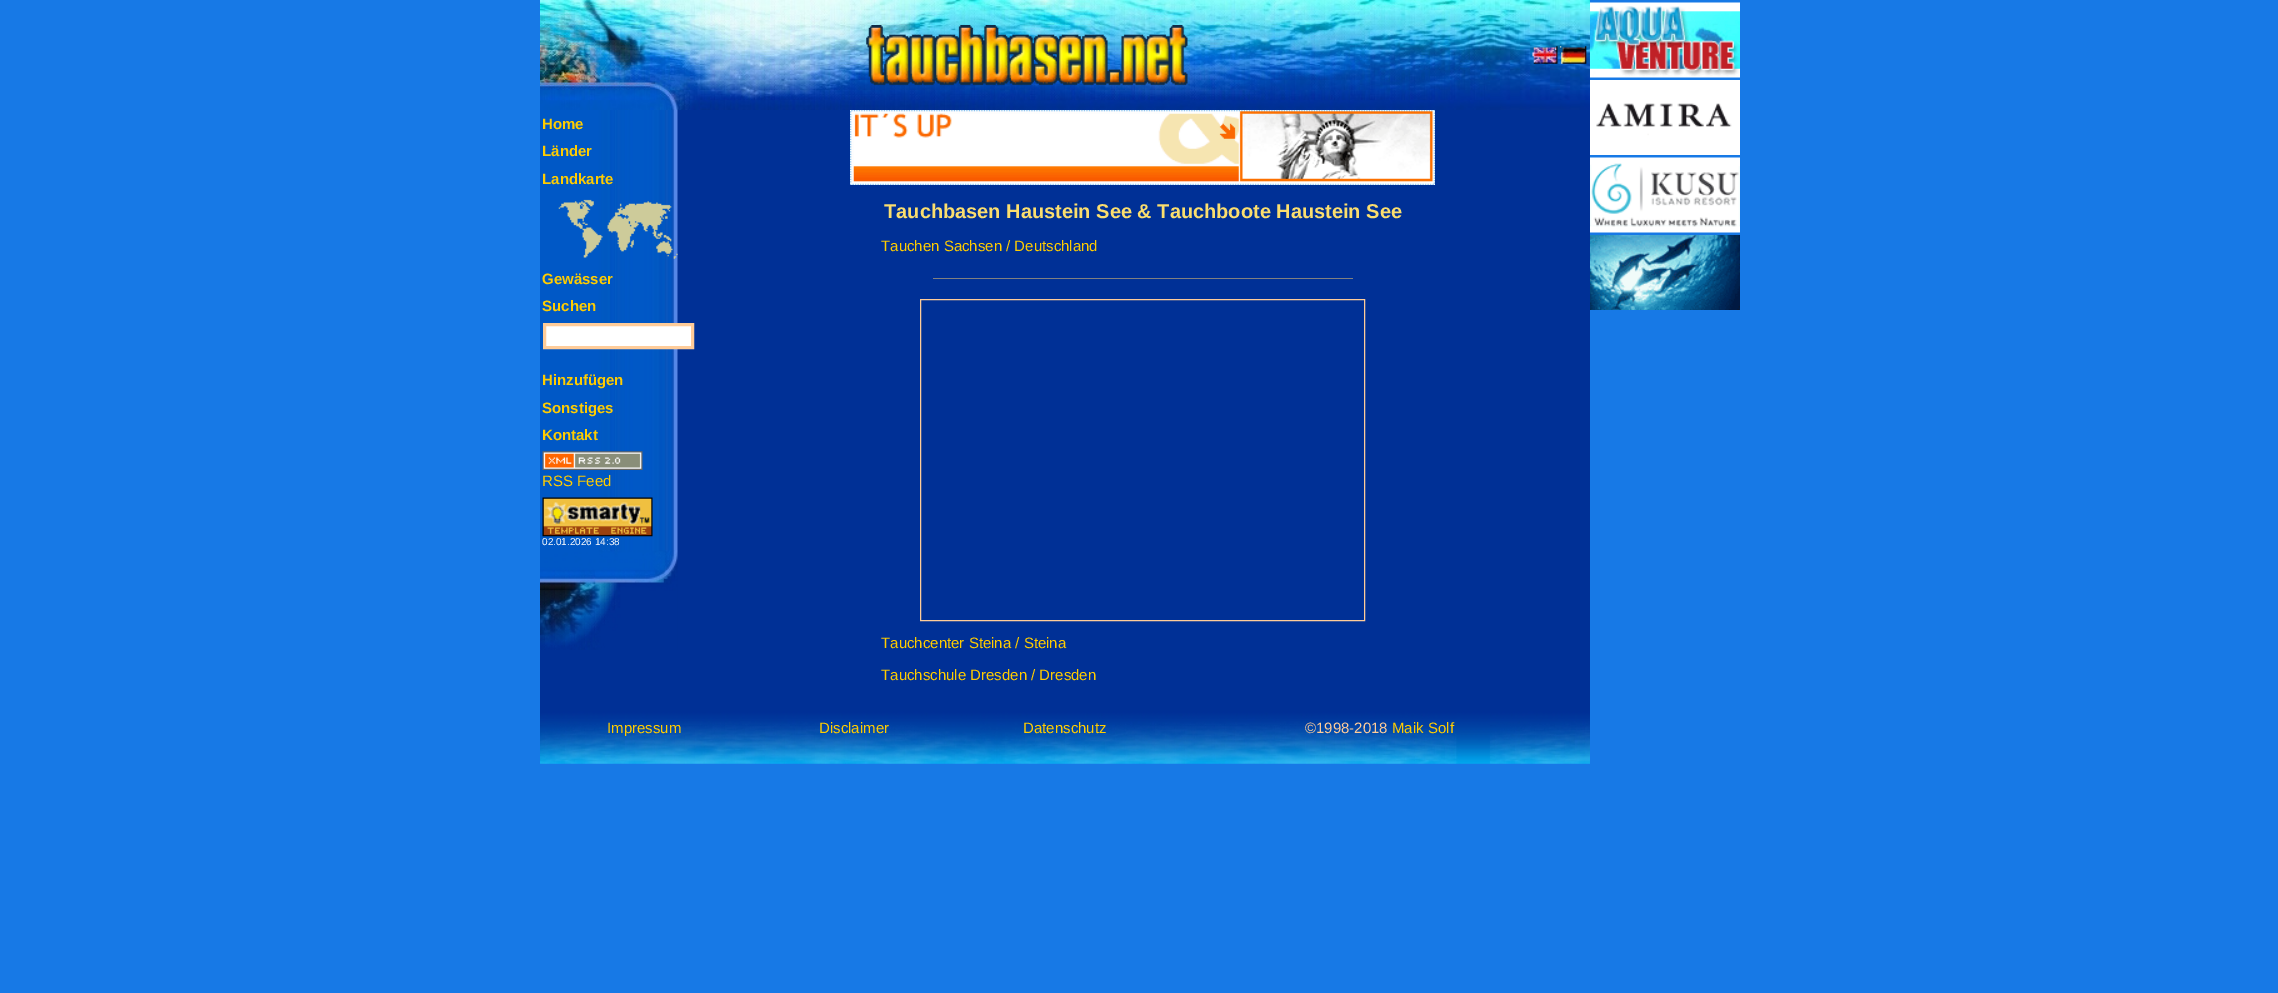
%!PS
<< /PageSize [2278 993] >> setpagedevice
/rgb { 3 { 255 div 3 1 roll } repeat setrgbcolor } def
/font { [ exch dup neg 0 0 3 -1 roll 0 0 ] selectfont } def
/picture { 5 dict begin { /h /w /y /x /name } { exch def } forall
  gsave x y translate w h scale
  w h 8 [w 0 0 h 0 0] name (r) file false 3 colorimage grestore end } def
0 993 translate 1 -1 scale
4 setmiterlimit
23 121 230 rgb
0 0 2278 993 rectfill
(img/1.rgb) 540 0 1050 110 picture
(img/2.rgb) 866 25 322 61 picture
(img/3.rgb) 1532 46 30 18 picture
(img/4.rgb) 1561 46 26 18 picture
0 48 150 rgb
540 110 1050 582 rectfill
(img/5.rgb) 540 110 138 440 picture
(img/6.rgb) 558 199 120 60 picture
255 255 255 rgb
544.5 324.5 moveto 692.5 324.5 lineto 692.5 347.5 lineto 544.5 347.5 lineto closepath gsave fill grestore
255 204 153 rgb
3 setlinewidth
stroke
(img/7.rgb) 542 451 101 19 picture
(img/8.rgb) 542 497 111 40 picture
(img/9.rgb) 540 550 138 100 picture
(img/10.rgb) 850 110 585 75 picture
128 128 128 rgb
933 278 420 1 rectfill
255 204 153 rgb
1 setlinewidth
920.5 299.5 444 321 rectstroke
(img/11.rgb) 540 692 1050 72 picture
(img/12.rgb) 1590 2 150 76 picture
(img/13.rgb) 1590 80 150 75 picture
(img/14.rgb) 1590 157 150 76 picture
(img/15.rgb) 1590 235 150 75 picture
/LiberationSans-Bold 15 font
255 204 0 rgb
[
  [(Home) 542 129]
  [(Länder) 542 156]
  [(Landkarte) 542 184]
  [(Gewässer) 542 284]
  [(Suchen) 542 311]
  [(Hinzufügen) 542 385]
  [(Sonstiges) 542 413]
  [(Kontakt) 542 440]
] { aload pop moveto show } forall
/LiberationSans-Regular 15 font
542 486 moveto (RSS Feed) show
/LiberationSans-Regular 10 font
255 255 255 rgb
542 545 moveto (02.01.2026 14:38) show
/LiberationSans-Bold 20 font
251 222 110 rgb
884 218 moveto (Tauchbasen Haustein See & Tauchboote Haustein See) show
/LiberationSans-Regular 15 font
255 204 0 rgb
[
  [(Tauchen Sachsen / Deutschland) 881 251]
  [(Tauchcenter Steina / Steina) 881 648]
  [(Tauchschule Dresden / Dresden) 881 680]
  [(Impressum) 607 733]
  [(Disclaimer) 819 733]
  [(Datenschutz) 1023 733]
] { aload pop moveto show } forall
255 204 153 rgb
1305 733 moveto (©1998-2018) show
255 204 0 rgb
1392 733 moveto (Maik Solf) show
showpage
